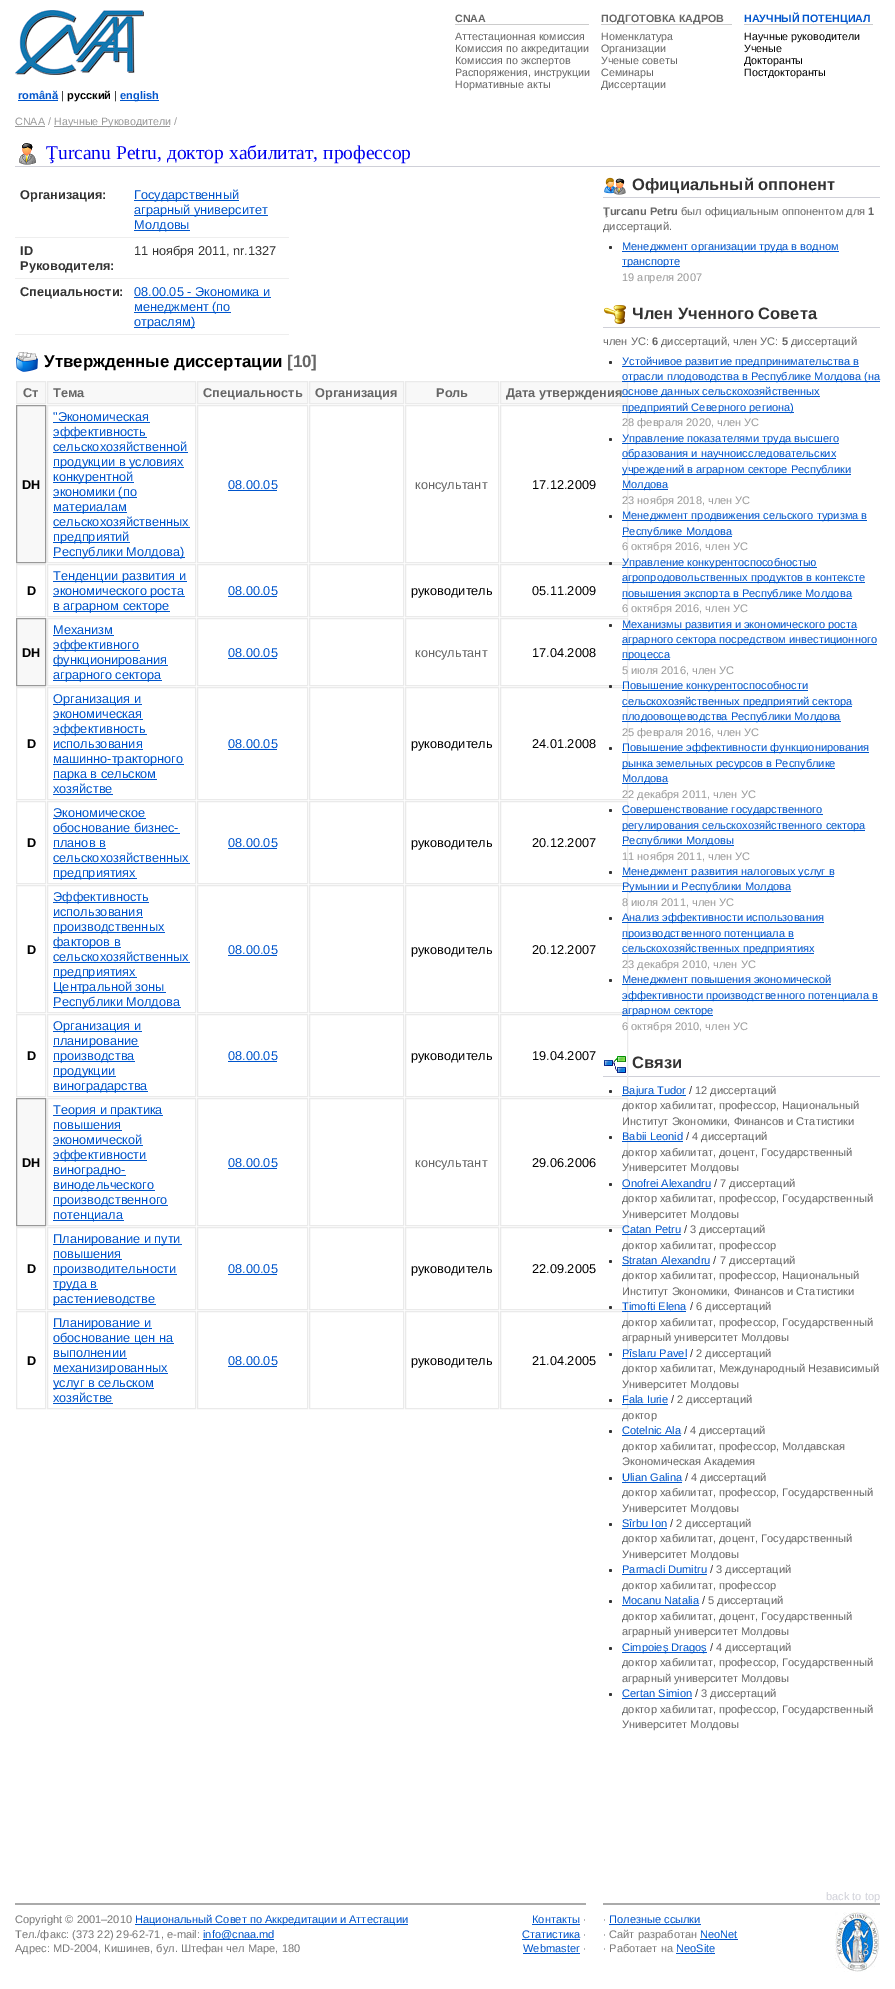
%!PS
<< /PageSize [895 1989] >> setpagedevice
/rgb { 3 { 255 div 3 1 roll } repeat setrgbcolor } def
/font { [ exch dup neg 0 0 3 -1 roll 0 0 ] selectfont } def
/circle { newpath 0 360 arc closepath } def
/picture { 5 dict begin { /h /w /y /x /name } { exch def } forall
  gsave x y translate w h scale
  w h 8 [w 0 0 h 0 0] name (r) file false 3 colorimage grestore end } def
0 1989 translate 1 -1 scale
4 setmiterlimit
255 255 255 rgb
0 0 895 1989 rectfill
(img/1.rgb) 15 10 129 65 picture
[
  [455 24 134 1 204 204 204]
  [601 24 131 1 204 204 204]
  [744 24 129 1 204 204 204]
  [18 100 40 1 0 85 204]
  [120 100 39 1 0 85 204]
  [15 126 30 1 153 153 153]
  [54 126 116 1 153 153 153]
] { aload pop rgb rectfill } forall
(img/2.rgb) 19 143 17 22 picture
[
  [15 166 865 1 207 208 216]
  [15 237 274 1 238 238 238]
  [134 200 105 1 0 85 204]
  [134 215 134 1 0 85 204]
  [134 230 56 1 0 85 204]
  [15 278 274 1 238 238 238]
  [15 334 274 1 238 238 238]
  [134 297 137 1 0 85 204]
  [134 312 97 1 0 85 204]
  [134 327 61 1 0 85 204]
] { aload pop rgb rectfill } forall
(img/3.rgb) 16 352 22 20 picture
248 248 248 rgb
16.5 381.5 moveto 45.5 381.5 lineto 45.5 403.5 lineto 16.5 403.5 lineto closepath gsave fill grestore
234 234 234 rgb
stroke
248 248 248 rgb
47.5 381.5 moveto 195.5 381.5 lineto 195.5 403.5 lineto 47.5 403.5 lineto closepath gsave fill grestore
234 234 234 rgb
stroke
248 248 248 rgb
197.5 381.5 moveto 307.5 381.5 lineto 307.5 403.5 lineto 197.5 403.5 lineto closepath gsave fill grestore
234 234 234 rgb
stroke
248 248 248 rgb
309.5 381.5 moveto 403.5 381.5 lineto 403.5 403.5 lineto 309.5 403.5 lineto closepath gsave fill grestore
234 234 234 rgb
stroke
248 248 248 rgb
405.5 381.5 moveto 498.5 381.5 lineto 498.5 403.5 lineto 405.5 403.5 lineto closepath gsave fill grestore
234 234 234 rgb
stroke
248 248 248 rgb
500.5 381.5 moveto 627.5 381.5 lineto 627.5 403.5 lineto 500.5 403.5 lineto closepath gsave fill grestore
234 234 234 rgb
stroke
248 248 248 rgb
16.5 405.5 moveto 45.5 405.5 lineto 45.5 562.5 lineto 16.5 562.5 lineto closepath gsave fill grestore
153 153 153 rgb
stroke
234 234 234 rgb
47.5 405.5 148 157 rectstroke
[
  [53 422 97 1 0 85 204]
  [53 437 94 1 0 85 204]
  [53 452 135 1 0 85 204]
  [53 467 131 1 0 85 204]
  [53 482 81 1 0 85 204]
  [53 497 84 1 0 85 204]
  [53 512 74 1 0 85 204]
  [53 527 137 1 0 85 204]
  [53 542 77 1 0 85 204]
  [53 557 132 1 0 85 204]
] { aload pop rgb rectfill } forall
234 234 234 rgb
197.5 405.5 110 157 rectstroke
0 85 204 rgb
228 490 49 1 rectfill
234 234 234 rgb
309.5 405.5 94 157 rectstroke
405.5 405.5 93 157 rectstroke
500.5 405.5 127 157 rectstroke
16.5 564.5 29 52 rectstroke
47.5 564.5 148 52 rectstroke
[
  [53 581 134 1 0 85 204]
  [53 596 132 1 0 85 204]
  [53 611 117 1 0 85 204]
] { aload pop rgb rectfill } forall
234 234 234 rgb
197.5 564.5 110 52 rectstroke
0 85 204 rgb
228 596 49 1 rectfill
234 234 234 rgb
309.5 564.5 94 52 rectstroke
405.5 564.5 93 52 rectstroke
500.5 564.5 127 52 rectstroke
248 248 248 rgb
16.5 618.5 moveto 45.5 618.5 lineto 45.5 685.5 lineto 16.5 685.5 lineto closepath gsave fill grestore
153 153 153 rgb
stroke
234 234 234 rgb
47.5 618.5 148 67 rectstroke
[
  [53 635 61 1 0 85 204]
  [53 650 87 1 0 85 204]
  [53 665 115 1 0 85 204]
  [53 680 109 1 0 85 204]
] { aload pop rgb rectfill } forall
234 234 234 rgb
197.5 618.5 110 67 rectstroke
0 85 204 rgb
228 658 49 1 rectfill
234 234 234 rgb
309.5 618.5 94 67 rectstroke
405.5 618.5 93 67 rectstroke
500.5 618.5 127 67 rectstroke
16.5 687.5 29 112 rectstroke
47.5 687.5 148 112 rectstroke
[
  [53 704 89 1 0 85 204]
  [53 719 90 1 0 85 204]
  [53 734 94 1 0 85 204]
  [53 749 90 1 0 85 204]
  [53 764 131 1 0 85 204]
  [53 779 104 1 0 85 204]
  [53 794 60 1 0 85 204]
] { aload pop rgb rectfill } forall
234 234 234 rgb
197.5 687.5 110 112 rectstroke
0 85 204 rgb
228 749 49 1 rectfill
234 234 234 rgb
309.5 687.5 94 112 rectstroke
405.5 687.5 93 112 rectstroke
500.5 687.5 127 112 rectstroke
16.5 801.5 29 82 rectstroke
47.5 801.5 148 82 rectstroke
[
  [53 818 93 1 0 85 204]
  [53 833 127 1 0 85 204]
  [53 848 53 1 0 85 204]
  [53 863 137 1 0 85 204]
  [53 878 84 1 0 85 204]
] { aload pop rgb rectfill } forall
234 234 234 rgb
197.5 801.5 110 82 rectstroke
0 85 204 rgb
228 848 49 1 rectfill
234 234 234 rgb
309.5 801.5 94 82 rectstroke
405.5 801.5 93 82 rectstroke
500.5 801.5 127 82 rectstroke
16.5 885.5 29 127 rectstroke
47.5 885.5 148 127 rectstroke
[
  [53 902 96 1 0 85 204]
  [53 917 90 1 0 85 204]
  [53 932 112 1 0 85 204]
  [53 947 68 1 0 85 204]
  [53 962 137 1 0 85 204]
  [53 977 84 1 0 85 204]
  [53 992 113 1 0 85 204]
  [53 1007 128 1 0 85 204]
] { aload pop rgb rectfill } forall
234 234 234 rgb
197.5 885.5 110 127 rectstroke
0 85 204 rgb
228 955 49 1 rectfill
234 234 234 rgb
309.5 885.5 94 127 rectstroke
405.5 885.5 93 127 rectstroke
500.5 885.5 127 127 rectstroke
16.5 1014.5 29 82 rectstroke
47.5 1014.5 148 82 rectstroke
[
  [53 1031 89 1 0 85 204]
  [53 1046 86 1 0 85 204]
  [53 1061 82 1 0 85 204]
  [53 1076 63 1 0 85 204]
  [53 1091 95 1 0 85 204]
] { aload pop rgb rectfill } forall
234 234 234 rgb
197.5 1014.5 110 82 rectstroke
0 85 204 rgb
228 1061 49 1 rectfill
234 234 234 rgb
309.5 1014.5 94 82 rectstroke
405.5 1014.5 93 82 rectstroke
207 208 216 rgb
603 1076 277 1 rectfill
234 234 234 rgb
500.5 1014.5 127 82 rectstroke
248 248 248 rgb
16.5 1098.5 moveto 45.5 1098.5 lineto 45.5 1225.5 lineto 16.5 1225.5 lineto closepath gsave fill grestore
153 153 153 rgb
stroke
234 234 234 rgb
47.5 1098.5 148 127 rectstroke
[
  [53 1115 110 1 0 85 204]
  [53 1130 69 1 0 85 204]
  [53 1145 90 1 0 85 204]
  [53 1160 94 1 0 85 204]
  [53 1175 73 1 0 85 204]
  [53 1190 102 1 0 85 204]
  [53 1205 115 1 0 85 204]
  [53 1220 71 1 0 85 204]
] { aload pop rgb rectfill } forall
234 234 234 rgb
197.5 1098.5 110 127 rectstroke
0 85 204 rgb
228 1168 49 1 rectfill
234 234 234 rgb
309.5 1098.5 94 127 rectstroke
405.5 1098.5 93 127 rectstroke
500.5 1098.5 127 127 rectstroke
16.5 1227.5 29 82 rectstroke
47.5 1227.5 148 82 rectstroke
[
  [53 1244 129 1 0 85 204]
  [53 1259 69 1 0 85 204]
  [53 1274 124 1 0 85 204]
  [53 1289 45 1 0 85 204]
  [53 1304 103 1 0 85 204]
] { aload pop rgb rectfill } forall
234 234 234 rgb
197.5 1227.5 110 82 rectstroke
0 85 204 rgb
228 1274 49 1 rectfill
234 234 234 rgb
309.5 1227.5 94 82 rectstroke
405.5 1227.5 93 82 rectstroke
500.5 1227.5 127 82 rectstroke
16.5 1311.5 29 97 rectstroke
47.5 1311.5 148 97 rectstroke
[
  [53 1328 99 1 0 85 204]
  [53 1343 121 1 0 85 204]
  [53 1358 74 1 0 85 204]
  [53 1373 115 1 0 85 204]
  [53 1388 101 1 0 85 204]
  [53 1403 60 1 0 85 204]
] { aload pop rgb rectfill } forall
234 234 234 rgb
197.5 1311.5 110 97 rectstroke
0 85 204 rgb
228 1366 49 1 rectfill
234 234 234 rgb
309.5 1311.5 94 97 rectstroke
405.5 1311.5 93 97 rectstroke
500.5 1311.5 127 97 rectstroke
207 208 216 rgb
603 197 277 1 rectfill
(img/4.rgb) 604 177 22 18 picture
51 51 51 rgb
610.5 247.5 1.5 circle fill
[
  [622 251 217 1 0 85 204]
  [622 266 58 1 0 85 204]
  [603 327 277 1 207 208 216]
] { aload pop rgb rectfill } forall
(img/5.rgb) 604 305 22 19 picture
51 51 51 rgb
610.5 362.5 1.5 circle fill
[
  [622 366 237 1 0 85 204]
  [622 381 258 1 0 85 204]
  [622 396 198 1 0 85 204]
  [622 412 172 1 0 85 204]
] { aload pop rgb rectfill } forall
51 51 51 rgb
610.5 439.5 1.5 circle fill
[
  [622 443 217 1 0 85 204]
  [622 458 214 1 0 85 204]
  [622 474 229 1 0 85 204]
  [622 489 46 1 0 85 204]
] { aload pop rgb rectfill } forall
51 51 51 rgb
610.5 516.5 1.5 circle fill
0 85 204 rgb
622 520 245 1 rectfill
622 536 110 1 rectfill
51 51 51 rgb
610.5 563.5 1.5 circle fill
[
  [622 567 195 1 0 85 204]
  [622 582 243 1 0 85 204]
  [622 598 230 1 0 85 204]
] { aload pop rgb rectfill } forall
51 51 51 rgb
610.5 625.5 1.5 circle fill
[
  [622 629 235 1 0 85 204]
  [622 644 255 1 0 85 204]
  [622 659 48 1 0 85 204]
] { aload pop rgb rectfill } forall
51 51 51 rgb
610.5 686.5 1.5 circle fill
[
  [622 690 186 1 0 85 204]
  [622 706 230 1 0 85 204]
  [622 721 219 1 0 85 204]
] { aload pop rgb rectfill } forall
51 51 51 rgb
610.5 748.5 1.5 circle fill
[
  [622 752 247 1 0 85 204]
  [622 768 213 1 0 85 204]
  [622 783 46 1 0 85 204]
] { aload pop rgb rectfill } forall
51 51 51 rgb
610.5 810.5 1.5 circle fill
[
  [622 814 201 1 0 85 204]
  [622 830 243 1 0 85 204]
  [622 845 112 1 0 85 204]
] { aload pop rgb rectfill } forall
51 51 51 rgb
610.5 872.5 1.5 circle fill
0 85 204 rgb
622 876 212 1 rectfill
622 891 169 1 rectfill
51 51 51 rgb
610.5 918.5 1.5 circle fill
[
  [622 922 202 1 0 85 204]
  [622 938 172 1 0 85 204]
  [622 953 192 1 0 85 204]
] { aload pop rgb rectfill } forall
51 51 51 rgb
610.5 980.5 1.5 circle fill
[
  [622 984 209 1 0 85 204]
  [622 1000 256 1 0 85 204]
  [622 1015 91 1 0 85 204]
] { aload pop rgb rectfill } forall
(img/6.rgb) 604 1056 22 17 picture
51 51 51 rgb
610.5 1091.5 1.5 circle fill
0 85 204 rgb
622 1095 64 1 rectfill
51 51 51 rgb
610.5 1137.5 1.5 circle fill
0 85 204 rgb
622 1141 61 1 rectfill
51 51 51 rgb
610.5 1184.5 1.5 circle fill
0 85 204 rgb
622 1188 89 1 rectfill
51 51 51 rgb
610.5 1230.5 1.5 circle fill
0 85 204 rgb
622 1234 59 1 rectfill
51 51 51 rgb
610.5 1261.5 1.5 circle fill
0 85 204 rgb
622 1265 88 1 rectfill
51 51 51 rgb
610.5 1307.5 1.5 circle fill
0 85 204 rgb
622 1311 64 1 rectfill
51 51 51 rgb
610.5 1354.5 1.5 circle fill
0 85 204 rgb
622 1358 65 1 rectfill
51 51 51 rgb
610.5 1400.5 1.5 circle fill
0 85 204 rgb
622 1404 46 1 rectfill
51 51 51 rgb
610.5 1431.5 1.5 circle fill
0 85 204 rgb
622 1435 59 1 rectfill
51 51 51 rgb
610.5 1478.5 1.5 circle fill
0 85 204 rgb
622 1482 60 1 rectfill
51 51 51 rgb
610.5 1524.5 1.5 circle fill
0 85 204 rgb
622 1528 45 1 rectfill
51 51 51 rgb
610.5 1570.5 1.5 circle fill
0 85 204 rgb
622 1574 85 1 rectfill
51 51 51 rgb
610.5 1601.5 1.5 circle fill
0 85 204 rgb
622 1605 77 1 rectfill
51 51 51 rgb
610.5 1648.5 1.5 circle fill
0 85 204 rgb
622 1652 85 1 rectfill
51 51 51 rgb
610.5 1694.5 1.5 circle fill
[
  [622 1698 70 1 0 85 204]
  [15 1903 571 2 170 170 170]
  [135 1924 273 1 0 85 204]
  [532 1924 48 1 0 85 204]
  [522 1939 58 1 0 85 204]
  [523 1953 57 1 0 85 204]
  [203 1939 71 1 0 85 204]
  [603 1903 277 2 170 170 170]
  [609 1924 92 1 0 85 204]
] { aload pop rgb rectfill } forall
(img/7.rgb) 835 1912 45 60 picture
700 1939 38 1 rectfill
676 1953 39 1 rectfill
/LiberationSans-Bold 10.7 font
102 102 102 rgb
455 22 moveto (CNAA) show
/LiberationSans-Regular 10.7 font
[
  [(Аттестационная комиссия) 455 40]
  [(Комиссия по аккредитации) 455 52]
  [(Комиссия по экспертов) 455 64]
  [(Распоряжения, инструкции) 455 76]
  [(Нормативные акты) 455 88]
] { aload pop moveto show } forall
/LiberationSans-Bold 10.7 font
601 22 moveto (ПОДГОТОВКА КАДРОВ) show
/LiberationSans-Regular 10.7 font
[
  [(Номенклатура) 601 40]
  [(Организации) 601 52]
  [(Ученые советы) 601 64]
  [(Семинары) 601 76]
  [(Диссертации) 601 88]
] { aload pop moveto show } forall
/LiberationSans-Bold 10.7 font
0 85 204 rgb
744 22 moveto (НАУЧНЫЙ ПОТЕНЦИАЛ) show
/LiberationSans-Regular 10.7 font
0 0 0 rgb
[
  [(Научные руководители) 744 40]
  [(Ученые) 744 52]
  [(Докторанты) 744 64]
  [(Постдокторанты) 744 76]
] { aload pop moveto show } forall
/LiberationSans-Bold 11.05 font
0 85 204 rgb
18 99 moveto (română) show
/LiberationSans-Regular 11.05 font
0 0 0 rgb
61 99 moveto (|) show
/LiberationSans-Bold 11.05 font
67 99 moveto (русский) show
/LiberationSans-Regular 11.05 font
114 99 moveto (|) show
/LiberationSans-Bold 11.05 font
0 85 204 rgb
120 99 moveto (english) show
/LiberationSans-Regular 10.7 font
153 153 153 rgb
15 125 moveto (CNAA /) show
54 125 moveto (Научные Руководители /) show
/LiberationSerif-Regular 19.5 font
0 0 238 rgb
46 159 moveto (Ţurcanu Petru, доктор хабилитат, профессор) show
/LiberationSans-Bold 12.75 font
51 51 51 rgb
20 199 moveto (Организация:) show
/LiberationSans-Regular 12.75 font
0 85 204 rgb
[
  [(Государственный) 134 199]
  [(аграрный университет) 134 214]
  [(Молдовы) 134 229]
] { aload pop moveto show } forall
/LiberationSans-Bold 12.75 font
51 51 51 rgb
20 255 moveto (ID) show
20 270 moveto (Руководителя:) show
/LiberationSans-Regular 12.75 font
134 255 moveto (11 ноября 2011, nr.1327) show
/LiberationSans-Bold 12.75 font
20 296 moveto (Специальности:) show
/LiberationSans-Regular 12.75 font
0 85 204 rgb
[
  [(08.00.05 - Экономика и) 134 296]
  [(менеджмент \(по) 134 311]
  [(отраслям\)) 134 326]
] { aload pop moveto show } forall
/LiberationSans-Bold 16.9 font
0 0 0 rgb
44 367 moveto (Утвержденные диссертации) show
102 102 102 rgb
287 367 moveto ([10]) show
/LiberationSans-Bold 12.75 font
[
  [(Ст) 23 397]
  [(Тема) 53 397]
  [(Специальность) 203 397]
  [(Организация) 315 397]
  [(Роль) 436 397]
  [(Дата утверждения) 506 397]
] { aload pop moveto show } forall
0 0 0 rgb
22 489 moveto (DH) show
/LiberationSans-Regular 12.75 font
0 85 204 rgb
[
  [("Экономическая) 53 421]
  [(эффективность) 53 436]
  [(сельскохозяйственной) 53 451]
  [(продукции в условиях) 53 466]
  [(конкурентной) 53 481]
  [(экономики \(по) 53 496]
  [(материалам) 53 511]
  [(сельскохозяйственных) 53 526]
  [(предприятий) 53 541]
  [(Республики Молдова\)) 53 556]
  [(08.00.05) 228 489]
] { aload pop moveto show } forall
102 102 102 rgb
415 489 moveto (консультант) show
0 0 0 rgb
532 489 moveto (17.12.2009) show
/LiberationSans-Bold 12.75 font
27 595 moveto (D) show
/LiberationSans-Regular 12.75 font
0 85 204 rgb
[
  [(Тенденции развития и) 53 580]
  [(экономического роста) 53 595]
  [(в аграрном секторе) 53 610]
  [(08.00.05) 228 595]
] { aload pop moveto show } forall
0 0 0 rgb
411 595 moveto (руководитель) show
532 595 moveto (05.11.2009) show
/LiberationSans-Bold 12.75 font
22 657 moveto (DH) show
/LiberationSans-Regular 12.75 font
0 85 204 rgb
[
  [(Механизм) 53 634]
  [(эффективного) 53 649]
  [(функционирования) 53 664]
  [(аграрного сектора) 53 679]
  [(08.00.05) 228 657]
] { aload pop moveto show } forall
102 102 102 rgb
415 657 moveto (консультант) show
0 0 0 rgb
532 657 moveto (17.04.2008) show
/LiberationSans-Bold 12.75 font
27 748 moveto (D) show
/LiberationSans-Regular 12.75 font
0 85 204 rgb
[
  [(Организация и) 53 703]
  [(экономическая) 53 718]
  [(эффективность) 53 733]
  [(использования) 53 748]
  [(машинно-тракторного) 53 763]
  [(парка в сельском) 53 778]
  [(хозяйстве) 53 793]
  [(08.00.05) 228 748]
] { aload pop moveto show } forall
0 0 0 rgb
411 748 moveto (руководитель) show
532 748 moveto (24.01.2008) show
/LiberationSans-Bold 12.75 font
27 847 moveto (D) show
/LiberationSans-Regular 12.75 font
0 85 204 rgb
[
  [(Экономическое) 53 817]
  [(обоснование бизнес-) 53 832]
  [(планов в) 53 847]
  [(сельскохозяйственных) 53 862]
  [(предприятиях) 53 877]
  [(08.00.05) 228 847]
] { aload pop moveto show } forall
0 0 0 rgb
411 847 moveto (руководитель) show
532 847 moveto (20.12.2007) show
/LiberationSans-Bold 12.75 font
27 954 moveto (D) show
/LiberationSans-Regular 12.75 font
0 85 204 rgb
[
  [(Эффективность) 53 901]
  [(использования) 53 916]
  [(производственных) 53 931]
  [(факторов в) 53 946]
  [(сельскохозяйственных) 53 961]
  [(предприятиях) 53 976]
  [(Центральной зоны) 53 991]
  [(Республики Молдова) 53 1006]
  [(08.00.05) 228 954]
] { aload pop moveto show } forall
0 0 0 rgb
411 954 moveto (руководитель) show
532 954 moveto (20.12.2007) show
/LiberationSans-Bold 12.75 font
27 1060 moveto (D) show
/LiberationSans-Regular 12.75 font
0 85 204 rgb
[
  [(Организация и) 53 1030]
  [(планирование) 53 1045]
  [(производства) 53 1060]
  [(продукции) 53 1075]
  [(виноградарства) 53 1090]
  [(08.00.05) 228 1060]
] { aload pop moveto show } forall
0 0 0 rgb
411 1060 moveto (руководитель) show
532 1060 moveto (19.04.2007) show
/LiberationSans-Bold 12.75 font
22 1167 moveto (DH) show
/LiberationSans-Regular 12.75 font
0 85 204 rgb
[
  [(Теория и практика) 53 1114]
  [(повышения) 53 1129]
  [(экономической) 53 1144]
  [(эффективности) 53 1159]
  [(виноградно-) 53 1174]
  [(винодельческого) 53 1189]
  [(производственного) 53 1204]
  [(потенциала) 53 1219]
  [(08.00.05) 228 1167]
] { aload pop moveto show } forall
102 102 102 rgb
415 1167 moveto (консультант) show
0 0 0 rgb
532 1167 moveto (29.06.2006) show
/LiberationSans-Bold 12.75 font
27 1273 moveto (D) show
/LiberationSans-Regular 12.75 font
0 85 204 rgb
[
  [(Планирование и пути) 53 1243]
  [(повышения) 53 1258]
  [(производительности) 53 1273]
  [(труда в) 53 1288]
  [(растениеводстве) 53 1303]
  [(08.00.05) 228 1273]
] { aload pop moveto show } forall
0 0 0 rgb
411 1273 moveto (руководитель) show
532 1273 moveto (22.09.2005) show
/LiberationSans-Bold 12.75 font
27 1365 moveto (D) show
/LiberationSans-Regular 12.75 font
0 85 204 rgb
[
  [(Планирование и) 53 1327]
  [(обоснование цен на) 53 1342]
  [(выполнении) 53 1357]
  [(механизированных) 53 1372]
  [(услуг в сельском) 53 1387]
  [(хозяйстве) 53 1402]
  [(08.00.05) 228 1365]
] { aload pop moveto show } forall
0 0 0 rgb
411 1365 moveto (руководитель) show
532 1365 moveto (21.04.2005) show
/LiberationSans-Bold 16.5 font
51 51 51 rgb
632 190 moveto (Официальный оппонент) show
/LiberationSans-Bold 11.05 font
102 102 102 rgb
603 215 moveto (Ţurcanu Petru) show
/LiberationSans-Regular 11.05 font
681 215 moveto (был официальным оппонентом для) show
/LiberationSans-Bold 11.05 font
868 215 moveto (1) show
/LiberationSans-Regular 11.05 font
603 230 moveto (диссертаций.) show
0 85 204 rgb
622 250 moveto (Менеджмент организации труда в водном) show
622 265 moveto (транспорте) show
153 153 153 rgb
622 281 moveto (19 апреля 2007) show
/LiberationSans-Bold 16.5 font
51 51 51 rgb
632 319 moveto (Член Ученного Совета) show
/LiberationSans-Regular 11.05 font
102 102 102 rgb
603 345 moveto (член УС:) show
/LiberationSans-Bold 11.05 font
652 345 moveto (6) show
/LiberationSans-Regular 11.05 font
661 345 moveto (диссертаций, член УС:) show
/LiberationSans-Bold 11.05 font
782 345 moveto (5) show
/LiberationSans-Regular 11.05 font
791 345 moveto (диссертаций) show
0 85 204 rgb
[
  [(Устойчивое развитие предпринимательства в) 622 365]
  [(отрасли плодоводства в Республике Молдова \(на) 622 380]
  [(основе данных сельскохозяйственных) 622 395]
  [(предприятий Северного региона\)) 622 411]
] { aload pop moveto show } forall
153 153 153 rgb
622 426 moveto (28 февраля 2020, член УС) show
0 85 204 rgb
[
  [(Управление показателями труда высшего) 622 442]
  [(образования и научноисследовательских) 622 457]
  [(учреждений в аграрном секторе Республики) 622 473]
  [(Молдова) 622 488]
] { aload pop moveto show } forall
153 153 153 rgb
622 504 moveto (23 ноября 2018, член УС) show
0 85 204 rgb
622 519 moveto (Менеджмент продвижения сельского туризма в) show
622 535 moveto (Республике Молдова) show
153 153 153 rgb
622 550 moveto (6 октября 2016, член УС) show
0 85 204 rgb
[
  [(Управление конкурентоспособностью) 622 566]
  [(агропродовольственных продуктов в контексте) 622 581]
  [(повышения экспорта в Республике Молдова) 622 597]
] { aload pop moveto show } forall
153 153 153 rgb
622 612 moveto (6 октября 2016, член УС) show
0 85 204 rgb
[
  [(Mеханизмы развития и экономического роста) 622 628]
  [(аграрного сектора посредством инвестиционного) 622 643]
  [(процесса) 622 658]
] { aload pop moveto show } forall
153 153 153 rgb
622 674 moveto (5 июля 2016, член УС) show
0 85 204 rgb
[
  [(Повышение конкурентоспособности) 622 689]
  [(сельскохозяйственных предприятий сектора) 622 705]
  [(плодоовощеводства Республики Молдова) 622 720]
] { aload pop moveto show } forall
153 153 153 rgb
622 736 moveto (25 февраля 2016, член УС) show
0 85 204 rgb
[
  [(Повышение эффективности функционирования) 622 751]
  [(рынка земельных ресурсов в Республике) 622 767]
  [(Молдова) 622 782]
] { aload pop moveto show } forall
153 153 153 rgb
622 798 moveto (22 декабря 2011, член УС) show
0 85 204 rgb
[
  [(Совершенствование государственного) 622 813]
  [(регулирования сельскохозяйственного сектора) 622 829]
  [(Республики Молдовы) 622 844]
] { aload pop moveto show } forall
153 153 153 rgb
622 860 moveto (11 ноября 2011, член УС) show
0 85 204 rgb
622 875 moveto (Менеджмент развития налоговых услуг в) show
622 890 moveto (Румынии и Республики Молдова) show
153 153 153 rgb
622 906 moveto (8 июля 2011, член УС) show
0 85 204 rgb
[
  [(Анализ эффективности использования) 622 921]
  [(производственного потенциала в) 622 937]
  [(сельскохозяйственных предприятиях) 622 952]
] { aload pop moveto show } forall
153 153 153 rgb
622 968 moveto (23 декабря 2010, член УС) show
0 85 204 rgb
[
  [(Менеджмент повышения экономической) 622 983]
  [(эффективности производственного потенциала в) 622 999]
  [(аграрном секторе) 622 1014]
] { aload pop moveto show } forall
153 153 153 rgb
622 1030 moveto (6 октября 2010, член УС) show
/LiberationSans-Bold 16.5 font
51 51 51 rgb
632 1068 moveto (Связи) show
/LiberationSans-Regular 11.05 font
0 85 204 rgb
622 1094 moveto (Bajura Tudor) show
51 51 51 rgb
689 1094 moveto (/) show
102 102 102 rgb
[
  [(12 диссертаций) 695 1094]
  [(доктор хабилитат, профессор, Национальный) 622 1109]
  [(Институт Экономики, Финансов и Статистики) 622 1125]
] { aload pop moveto show } forall
0 85 204 rgb
622 1140 moveto (Babii Leonid) show
51 51 51 rgb
686 1140 moveto (/) show
102 102 102 rgb
[
  [(4 диссертаций) 692 1140]
  [(доктор хабилитат, доцент, Государственный) 622 1156]
  [(Университет Молдовы) 622 1171]
] { aload pop moveto show } forall
0 85 204 rgb
622 1187 moveto (Onofrei Alexandru) show
51 51 51 rgb
714 1187 moveto (/) show
102 102 102 rgb
[
  [(7 диссертаций) 720 1187]
  [(доктор хабилитат, профессор, Государственный) 622 1202]
  [(Университет Молдовы) 622 1218]
] { aload pop moveto show } forall
0 85 204 rgb
622 1233 moveto (Catan Petru) show
51 51 51 rgb
684 1233 moveto (/) show
102 102 102 rgb
690 1233 moveto (3 диссертаций) show
622 1249 moveto (доктор хабилитат, профессор) show
0 85 204 rgb
622 1264 moveto (Stratan Alexandru) show
51 51 51 rgb
713 1264 moveto (/) show
102 102 102 rgb
[
  [(7 диссертаций) 720 1264]
  [(доктор хабилитат, профессор, Национальный) 622 1279]
  [(Институт Экономики, Финансов и Статистики) 622 1295]
] { aload pop moveto show } forall
0 85 204 rgb
622 1310 moveto (Timofti Elena) show
51 51 51 rgb
690 1310 moveto (/) show
102 102 102 rgb
[
  [(6 диссертаций) 696 1310]
  [(доктор хабилитат, профессор, Государственный) 622 1326]
  [(аграрный университет Молдовы) 622 1341]
] { aload pop moveto show } forall
0 85 204 rgb
622 1357 moveto (Pîslaru Pavel) show
51 51 51 rgb
690 1357 moveto (/) show
102 102 102 rgb
[
  [(2 диссертаций) 696 1357]
  [(доктор хабилитат, Международный Независимый) 622 1372]
  [(Университет Молдовы) 622 1388]
] { aload pop moveto show } forall
0 85 204 rgb
622 1403 moveto (Fala Iurie) show
51 51 51 rgb
671 1403 moveto (/) show
102 102 102 rgb
677 1403 moveto (2 диссертаций) show
622 1419 moveto (доктор) show
0 85 204 rgb
622 1434 moveto (Cotelnic Ala) show
51 51 51 rgb
684 1434 moveto (/) show
102 102 102 rgb
[
  [(4 диссертаций) 690 1434]
  [(доктор хабилитат, профессор, Молдавская) 622 1450]
  [(Экономическая Академия) 622 1465]
] { aload pop moveto show } forall
0 85 204 rgb
622 1481 moveto (Ulian Galina) show
51 51 51 rgb
685 1481 moveto (/) show
102 102 102 rgb
[
  [(4 диссертаций) 691 1481]
  [(доктор хабилитат, профессор, Государственный) 622 1496]
  [(Университет Молдовы) 622 1512]
] { aload pop moveto show } forall
0 85 204 rgb
622 1527 moveto (Sîrbu Ion) show
51 51 51 rgb
670 1527 moveto (/) show
102 102 102 rgb
[
  [(2 диссертаций) 676 1527]
  [(доктор хабилитат, доцент, Государственный) 622 1542]
  [(Университет Молдовы) 622 1558]
] { aload pop moveto show } forall
0 85 204 rgb
622 1573 moveto (Parmacli Dumitru) show
51 51 51 rgb
710 1573 moveto (/) show
102 102 102 rgb
716 1573 moveto (3 диссертаций) show
622 1589 moveto (доктор хабилитат, профессор) show
0 85 204 rgb
622 1604 moveto (Mocanu Natalia) show
51 51 51 rgb
702 1604 moveto (/) show
102 102 102 rgb
[
  [(5 диссертаций) 708 1604]
  [(доктор хабилитат, доцент, Государственный) 622 1620]
  [(аграрный университет Молдовы) 622 1635]
] { aload pop moveto show } forall
0 85 204 rgb
622 1651 moveto (Cimpoieş Dragoş) show
51 51 51 rgb
710 1651 moveto (/) show
102 102 102 rgb
[
  [(4 диссертаций) 716 1651]
  [(доктор хабилитат, профессор, Государственный) 622 1666]
  [(аграрный университет Молдовы) 622 1682]
] { aload pop moveto show } forall
0 85 204 rgb
622 1697 moveto (Certan Simion) show
51 51 51 rgb
695 1697 moveto (/) show
102 102 102 rgb
[
  [(3 диссертаций) 701 1697]
  [(доктор хабилитат, профессор, Государственный) 622 1713]
  [(Университет Молдовы) 622 1728]
] { aload pop moveto show } forall
207 208 216 rgb
826 1900 moveto (back to top) show
119 119 119 rgb
15 1923 moveto (Copyright © 2001–2010) show
0 85 204 rgb
135 1923 moveto (Национальный Совет по Аккредитации и Аттестации) show
532 1923 moveto (Контакты) show
119 119 119 rgb
583 1923 moveto (∙) show
0 85 204 rgb
522 1938 moveto (Статистика) show
119 119 119 rgb
583 1938 moveto (∙) show
0 85 204 rgb
523 1952 moveto (Webmaster) show
119 119 119 rgb
583 1952 moveto (∙) show
15 1938 moveto (Тел./факс: \(373 22\) 29-62-71, e-mail:) show
0 85 204 rgb
203 1938 moveto (info@cnaa.md) show
119 119 119 rgb
15 1952 moveto (Адрес: MD-2004, Кишинев, бул. Штефан чел Маре, 180) show
603 1923 moveto (∙) show
0 85 204 rgb
609 1923 moveto (Полезные ссылки) show
119 119 119 rgb
603 1938 moveto (∙ Сайт разработан) show
0 85 204 rgb
700 1938 moveto (NeoNet) show
119 119 119 rgb
603 1952 moveto (∙ Работает на) show
0 85 204 rgb
676 1952 moveto (NeoSite) show
showpage
